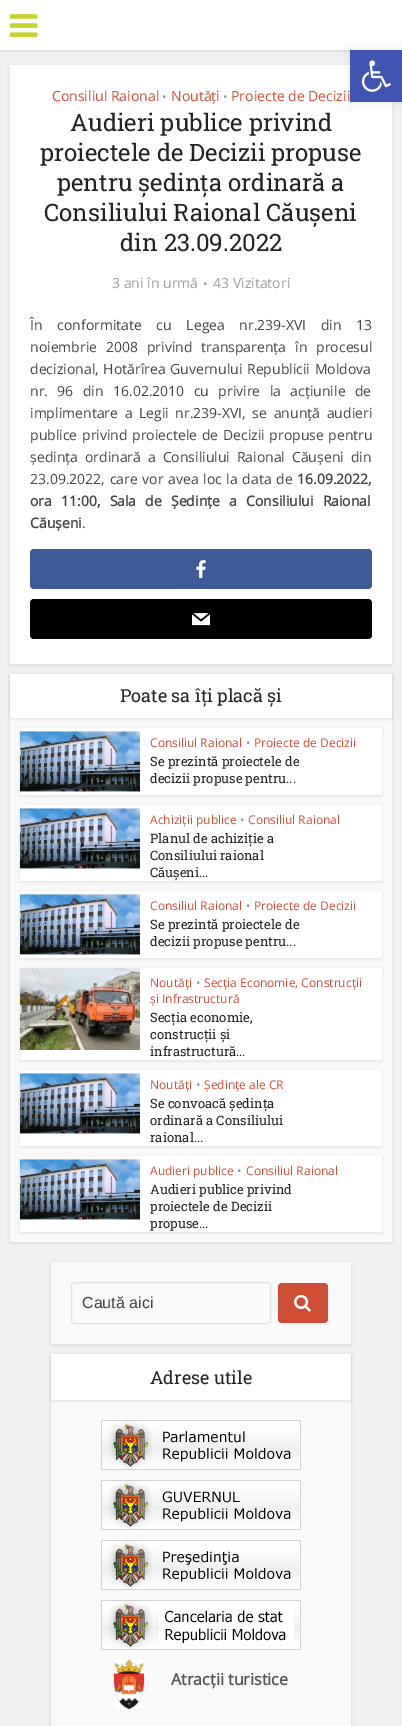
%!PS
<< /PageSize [402 1726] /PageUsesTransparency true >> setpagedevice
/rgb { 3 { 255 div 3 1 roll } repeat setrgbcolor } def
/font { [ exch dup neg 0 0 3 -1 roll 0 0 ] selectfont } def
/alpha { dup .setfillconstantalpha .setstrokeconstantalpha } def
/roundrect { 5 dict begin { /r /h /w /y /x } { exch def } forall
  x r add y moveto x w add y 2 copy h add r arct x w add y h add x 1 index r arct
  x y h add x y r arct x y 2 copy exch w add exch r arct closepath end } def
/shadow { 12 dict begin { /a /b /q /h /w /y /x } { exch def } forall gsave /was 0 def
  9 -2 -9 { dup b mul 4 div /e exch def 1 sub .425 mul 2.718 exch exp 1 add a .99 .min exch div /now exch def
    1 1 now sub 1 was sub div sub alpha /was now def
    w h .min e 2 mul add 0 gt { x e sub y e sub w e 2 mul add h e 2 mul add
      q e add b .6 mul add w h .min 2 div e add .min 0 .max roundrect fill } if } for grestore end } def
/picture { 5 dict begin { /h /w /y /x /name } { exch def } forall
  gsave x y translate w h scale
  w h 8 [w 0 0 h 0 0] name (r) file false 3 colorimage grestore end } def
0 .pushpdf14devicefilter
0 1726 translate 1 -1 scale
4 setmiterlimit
240 240 240 rgb
0 0 402 1726 rectfill
0 0 0 rgb
0 1 402 50 0 1.5 0.1 shadow
255 255 255 rgb
0 0 402 50 rectfill
0 0 0 rgb
10 66 382 599 0 1.5 0.1 shadow
255 255 255 rgb
10 65 382 599 rectfill
0 0 0 rgb
350 50 52 52 0 5 0.1 shadow
64 84 178 rgb
350 50 52 52 rectfill
(img/1.rgb) 361 60 30 32 picture
(img/2.rgb) 10 14 28 23 picture
62 91 152 rgb
30 549 342 40 4 roundrect fill
(img/3.rgb) 196 560 10 19 picture
0 0 0 rgb
30 599 342 40 4 roundrect fill
(img/4.rgb) 192 613 18 13 picture
10 675 382 568 0 1.5 0.1 shadow
249 249 249 rgb
10 718 382 524 rectfill
0 0 0 rgb
10 675 382 44 0 1.5 0.1 shadow
255 255 255 rgb
10 674 382 44 rectfill
0 0 0 rgb
20 729 362 67 0 1.5 0.1 shadow
255 255 255 rgb
20 728 362 67 rectfill
(img/5.rgb) 20 731 120 61 picture
0 0 0 rgb
20 806 362 76 0 1.5 0.1 shadow
255 255 255 rgb
20 805 362 76 rectfill
(img/5.rgb) 20 808 120 61 picture
0 0 0 rgb
20 892 362 67 0 1.5 0.1 shadow
255 255 255 rgb
20 891 362 67 rectfill
(img/5.rgb) 20 894 120 61 picture
0 0 0 rgb
20 969 362 92 0 1.5 0.1 shadow
255 255 255 rgb
20 968 362 92 rectfill
(img/6.rgb) 20 968 120 82 picture
0 0 0 rgb
20 1071 362 76 0 1.5 0.1 shadow
255 255 255 rgb
20 1070 362 76 rectfill
(img/5.rgb) 20 1073 120 61 picture
0 0 0 rgb
20 1157 362 76 0 1.5 0.1 shadow
255 255 255 rgb
20 1156 362 76 rectfill
(img/5.rgb) 20 1159 120 61 picture
0 0 0 rgb
51 1263 300 82 0 1.5 0.1 shadow
249 249 249 rgb
51 1262 300 82 rectfill
224 224 224 rgb
71.5 1282.5 199 41 3.5 roundrect stroke
207 77 53 rgb
278 1283 50 40 4 roundrect fill
(img/7.rgb) 294 1294 17 18 picture
0 0 0 rgb
51 1355 300 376 0 1.5 0.1 shadow
249 249 249 rgb
51 1400 300 326 rectfill
0 0 0 rgb
51 1355 300 46 0 1.5 0.1 shadow
255 255 255 rgb
51 1354 300 46 rectfill
(img/8.rgb) 101 1420 200 50 picture
(img/9.rgb) 101 1480 200 50 picture
(img/10.rgb) 101 1540 200 50 picture
(img/11.rgb) 101 1600 200 50 picture
(img/12.rgb) 114 1660 30 49 picture
/OpenSans-Regular 14 font
207 77 53 rgb
52 101 moveto (Consiliul Raional) show
/OpenSans-Regular 12 font
155 155 155 rgb
162 101 moveto (•) show
/OpenSans-Regular 14 font
207 77 53 rgb
171 101 moveto (Noutăți) show
/OpenSans-Regular 12 font
155 155 155 rgb
223 101 moveto (•) show
/OpenSans-Regular 14 font
207 77 53 rgb
231 101 moveto (Proiecte de Decizii) show
/RobotoSlab-Regular 24 font
35 35 35 rgb
[
  [(Audieri publice privind) 70 131]
  [(proiectele de Decizii propuse) 40 161]
  [(pentru ședința ordinară a) 57 191]
  [(Consiliului Raional Căușeni) 44 221]
  [(din 23.09.2022) 120 251]
] { aload pop moveto show } forall
/OpenSans-Regular 14 font
155 155 155 rgb
112 288 moveto (3 ani în urmă) show
/OpenSans-Regular 12 font
203 288 moveto (•) show
/OpenSans-Regular 14 font
213 288 moveto (43 Vizitatori) show
68 68 68 rgb
30 330 moveto 11 0 32 (În conformitate cu Legea nr.239-XVI din 13) widthshow
30 352 moveto 5.25 0 32 (noiembrie 2008 privind transparența în procesul) widthshow
30 374 moveto 1 0 32 (decizional, Hotărîrea Guvernului Republicii Moldova) widthshow
30 396 moveto 5.75 0 32 (nr. 96 din 16.02.2010 cu privire la acțiunile de) widthshow
30 418 moveto 3 0 32 (implimentare a Legii nr.239-XVI, se anunță audieri) widthshow
30 440 moveto 1 0 32 (publice privind proiectele de Decizii propuse pentru) widthshow
30 462 moveto 3.25 0 32 (ședința ordinară a Consiliului Raional Căușeni din) widthshow
30 484 moveto 1 0 32 (23.09.2022, care vor avea loc la data de) widthshow
/OpenSans-Bold 14 font
297 484 moveto (16.09.2022,) show
30 506 moveto 5.5 0 32 (ora 11:00, Sala de Ședințe a Consiliului Raional) widthshow
30 528 moveto (Căușeni) show
/OpenSans-Regular 14 font
82 528 moveto (.) show
/RobotoSlab-Regular 18 font
35 35 35 rgb
120 702 moveto (Poate sa îți placă și) show
/OpenSans-Regular 12 font
207 77 53 rgb
150 747 moveto (Consiliul Raional) show
155 155 155 rgb
246 747 moveto (•) show
207 77 53 rgb
254 747 moveto (Proiecte de Decizii) show
/RobotoSlab-Regular 13 font
35 35 35 rgb
150 766 moveto (Se prezintă proiectele de) show
150 783 moveto (decizii propuse pentru...) show
/OpenSans-Regular 12 font
207 77 53 rgb
150 824 moveto (Achiziții publice) show
155 155 155 rgb
240 824 moveto (•) show
207 77 53 rgb
248 824 moveto (Consiliul Raional) show
/RobotoSlab-Regular 13 font
35 35 35 rgb
[
  [(Planul de achiziție a) 150 843]
  [(Consiliului raional) 150 860]
  [(Căușeni...) 150 877]
] { aload pop moveto show } forall
/OpenSans-Regular 12 font
207 77 53 rgb
150 910 moveto (Consiliul Raional) show
155 155 155 rgb
246 910 moveto (•) show
207 77 53 rgb
254 910 moveto (Proiecte de Decizii) show
/RobotoSlab-Regular 13 font
35 35 35 rgb
150 929 moveto (Se prezintă proiectele de) show
150 946 moveto (decizii propuse pentru...) show
/OpenSans-Regular 12 font
207 77 53 rgb
150 987 moveto (Noutăți) show
155 155 155 rgb
196 987 moveto (•) show
207 77 53 rgb
204 987 moveto (Secția Economie, Construcții) show
150 1003 moveto (și Infrastructură) show
/RobotoSlab-Regular 13 font
35 35 35 rgb
[
  [(Secția economie,) 150 1022]
  [(construcții și) 150 1039]
  [(infrastructură...) 150 1056]
] { aload pop moveto show } forall
/OpenSans-Regular 12 font
207 77 53 rgb
150 1089 moveto (Noutăți) show
155 155 155 rgb
196 1089 moveto (•) show
207 77 53 rgb
204 1089 moveto (Ședințe ale CR) show
/RobotoSlab-Regular 13 font
35 35 35 rgb
[
  [(Se convoacă ședința) 150 1108]
  [(ordinară a Consiliului) 150 1125]
  [(raional...) 150 1142]
] { aload pop moveto show } forall
/OpenSans-Regular 12 font
207 77 53 rgb
150 1175 moveto (Audieri publice) show
155 155 155 rgb
237 1175 moveto (•) show
207 77 53 rgb
246 1175 moveto (Consiliul Raional) show
/RobotoSlab-Regular 13 font
35 35 35 rgb
[
  [(Audieri publice privind) 150 1194]
  [(proiectele de Decizii) 150 1211]
  [(propuse...) 150 1228]
] { aload pop moveto show } forall
/LiberationSans-Regular 16 font
68 68 68 rgb
82 1308 moveto (Caută aici) show
/RobotoSlab-Regular 18 font
35 35 35 rgb
150 1384 moveto (Adrese utile) show
/OpenSans-Bold 16 font
86 86 86 rgb
171 1685 moveto (Atracții turistice) show
.poppdf14devicefilter showpage
